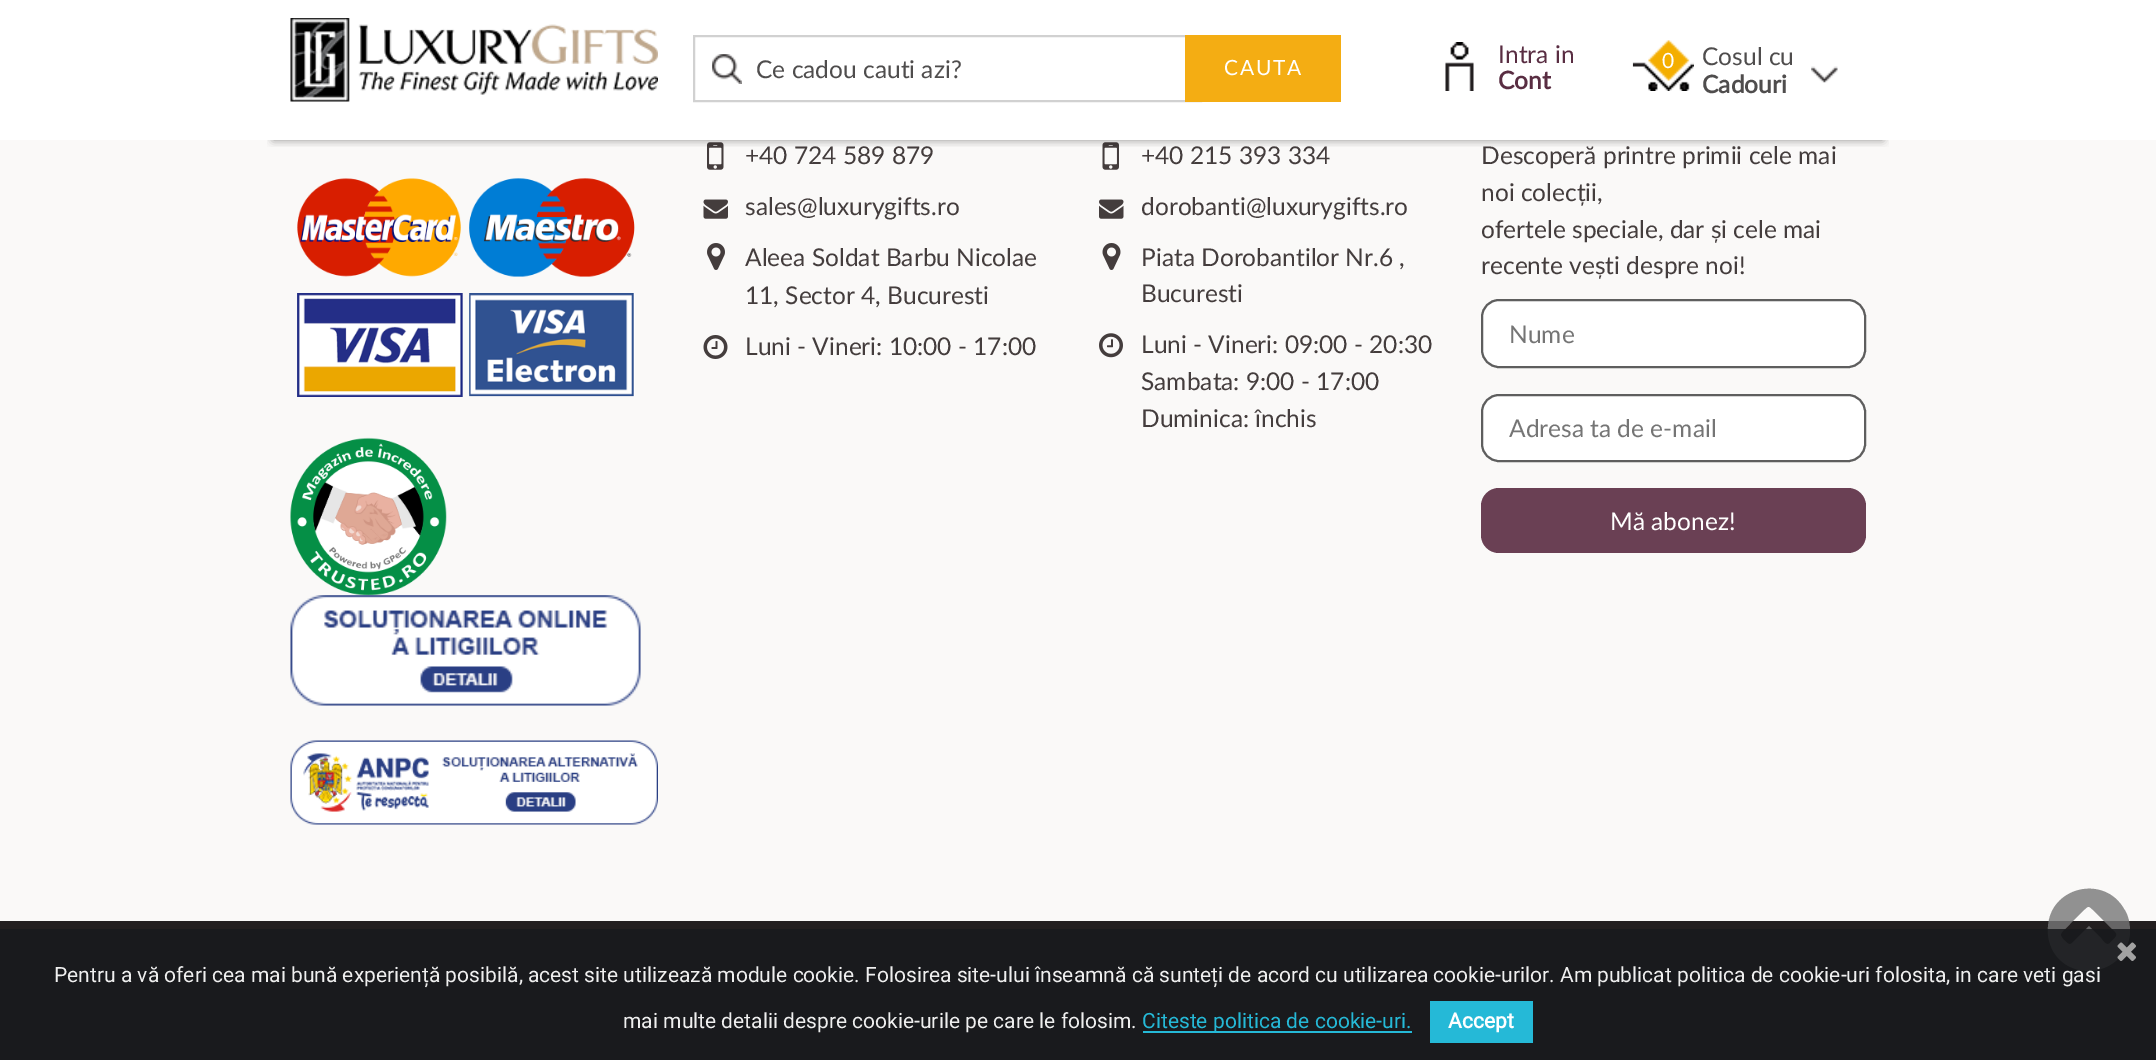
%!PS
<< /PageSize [2156 1060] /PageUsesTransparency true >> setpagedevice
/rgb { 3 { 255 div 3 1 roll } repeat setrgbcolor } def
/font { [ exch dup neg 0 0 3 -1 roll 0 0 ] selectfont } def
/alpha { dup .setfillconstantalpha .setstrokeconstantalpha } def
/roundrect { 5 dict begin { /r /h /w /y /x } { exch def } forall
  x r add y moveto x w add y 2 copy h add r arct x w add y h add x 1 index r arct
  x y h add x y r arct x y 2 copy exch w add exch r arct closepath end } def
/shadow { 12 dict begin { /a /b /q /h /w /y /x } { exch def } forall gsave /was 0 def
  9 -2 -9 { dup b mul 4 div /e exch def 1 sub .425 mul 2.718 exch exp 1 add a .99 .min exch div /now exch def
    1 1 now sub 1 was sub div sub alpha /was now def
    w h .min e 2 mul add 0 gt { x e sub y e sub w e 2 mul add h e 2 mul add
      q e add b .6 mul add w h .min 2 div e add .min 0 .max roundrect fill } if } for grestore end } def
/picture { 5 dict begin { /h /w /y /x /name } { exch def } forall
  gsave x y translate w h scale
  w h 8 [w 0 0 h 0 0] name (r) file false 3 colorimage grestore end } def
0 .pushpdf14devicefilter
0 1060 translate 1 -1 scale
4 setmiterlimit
250 249 248 rgb
0 0 2156 1060 rectfill
255 255 255 rgb
0 0 2156 140 rectfill
(img/10.rgb) 707 142 17 28 picture
(img/14.rgb) 1102 142 17 28 picture
gsave
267 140 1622 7 rectclip
0 0 0 rgb
273 18 1610 122 0 4.5 0.4 shadow
grestore
(img/1.rgb) 290 18 368 84 picture
(img/2.rgb) 712 54 30 30 picture
209 209 209 rgb
2 setlinewidth
694 36 507 65 rectstroke
244 173 19 rgb
1185 35 156 67 rectfill
(img/3.rgb) 1445 42 29 49 picture
(img/4.rgb) 1632 40 62 51 picture
(img/5.rgb) 1811 66 27 17 picture
(img/6.rgb) 297 178 338 219 picture
(img/7.rgb) 290 437 157 159 picture
(img/8.rgb) 290 595 351 111 picture
(img/9.rgb) 290 740 368 85 picture
(img/11.rgb) 703 199 25 20 picture
(img/12.rgb) 707 243 18 27 picture
(img/13.rgb) 703 335 25 24 picture
(img/15.rgb) 1099 199 25 20 picture
(img/16.rgb) 1102 243 19 27 picture
(img/17.rgb) 1099 333 24 25 picture
255 255 255 rgb
1482 300 383 67 17 roundrect gsave fill grestore
94 94 94 rgb
stroke
255 255 255 rgb
1482 395 383 66 17 roundrect gsave fill grestore
94 94 94 rgb
stroke
106 64 84 rgb
1481 488 385 65 18 roundrect fill
35 31 32 rgb
0 921 2156 139 rectfill
0.8 alpha
119 119 119 rgb
2110 943 moveto 2120 933 2118 935 2107 924 curveto 2095 912 lineto 2088 905 2089 905 2082 912 curveto 2070 924 lineto 2063 932 2057 933 2064 940 curveto 2069 945 2070 946 2075 940 curveto 2089 926 lineto 2100 937 lineto 2102 939 2106 947 2110 943 curveto closepath 2124 909 moveto 2129 916 2130 924 2130 933 curveto 2127 973 2073 985 2053 951 curveto 2049 943 2047 935 2048 927 curveto 2050 887 2104 874 2124 909 curveto closepath fill
0.85 alpha
23 25 28 rgb
0 929 2156 131 rectfill
1 alpha
(img/18.rgb) 2117 942 19 19 picture
37 185 215 rgb
1143 1031 269 2 rectfill
1430 1001 103 42 rectfill
/Lato-Regular 24.5 font
79 77 77 rgb
756 78 moveto (Ce cadou cauti azi?) show
/Lato-Regular 21 font
255 255 255 rgb
1224 75 moveto 1.75 0 (CAUTA) ashow
/Lato-Regular 24.5 font
89 45 66 rgb
1498 63 moveto (Intra in) show
/Lato-Bold 24.5 font
1498 89 moveto (Cont) show
/Lato-Regular 21 font
255 255 255 rgb
1662 68 moveto (0) show
/Lato-Regular 24.5 font
79 77 77 rgb
1702 65 moveto (Cosul cu) show
/Lato-Bold 24.5 font
1702 93 moveto (Cadouri) show
/Lato-Regular 24.5 font
68 61 61 rgb
[
  [(+40 724 589 879) 745 164]
  [(sales@luxurygifts.ro) 745 215]
  [(Aleea Soldat Barbu Nicolae) 745 266]
  [(11, Sector 4, Bucuresti) 745 304]
  [(Luni - Vineri: 10:00 - 17:00) 745 355]
  [(+40 215 393 334) 1141 164]
  [(dorobanti@luxurygifts.ro) 1141 215]
  [(Piata Dorobantilor Nr.6 ,) 1141 266]
  [(Bucuresti) 1141 302]
  [(Luni - Vineri: 09:00 - 20:30) 1141 353]
  [(Sambata: 9:00 - 17:00) 1141 390]
  [(Duminica: închis) 1141 427]
  [(Descoperă printre primii cele mai) 1481 164]
  [(noi colecții,) 1481 201]
  [(ofertele speciale, dar și cele mai) 1481 238]
  [(recente vești despre noi!) 1481 274]
] { aload pop moveto show } forall
117 117 117 rgb
1509 343 moveto (Nume) show
1509 437 moveto (Adresa ta de e-mail) show
255 255 255 rgb
1610 530 moveto (Mă abonez!) show
/Roboto-Regular 21 font
239 239 239 rgb
54 982 moveto (Pentru a vă oferi cea mai bună experiență posibilă, acest site utilizează module cookie. Folosirea site-ului înseamnă că sunteți de acord cu utilizarea cookie-urilor. Am publicat politica de cookie-uri folosita, in care veti gasi) show
623 1028 moveto (mai multe detalii despre cookie-urile pe care le folosim.) show
37 185 215 rgb
1142 1028 moveto (Citeste politica de cookie-uri.) show
/Roboto-Bold 21 font
255 255 255 rgb
1448 1028 moveto (Accept) show
.poppdf14devicefilter showpage
